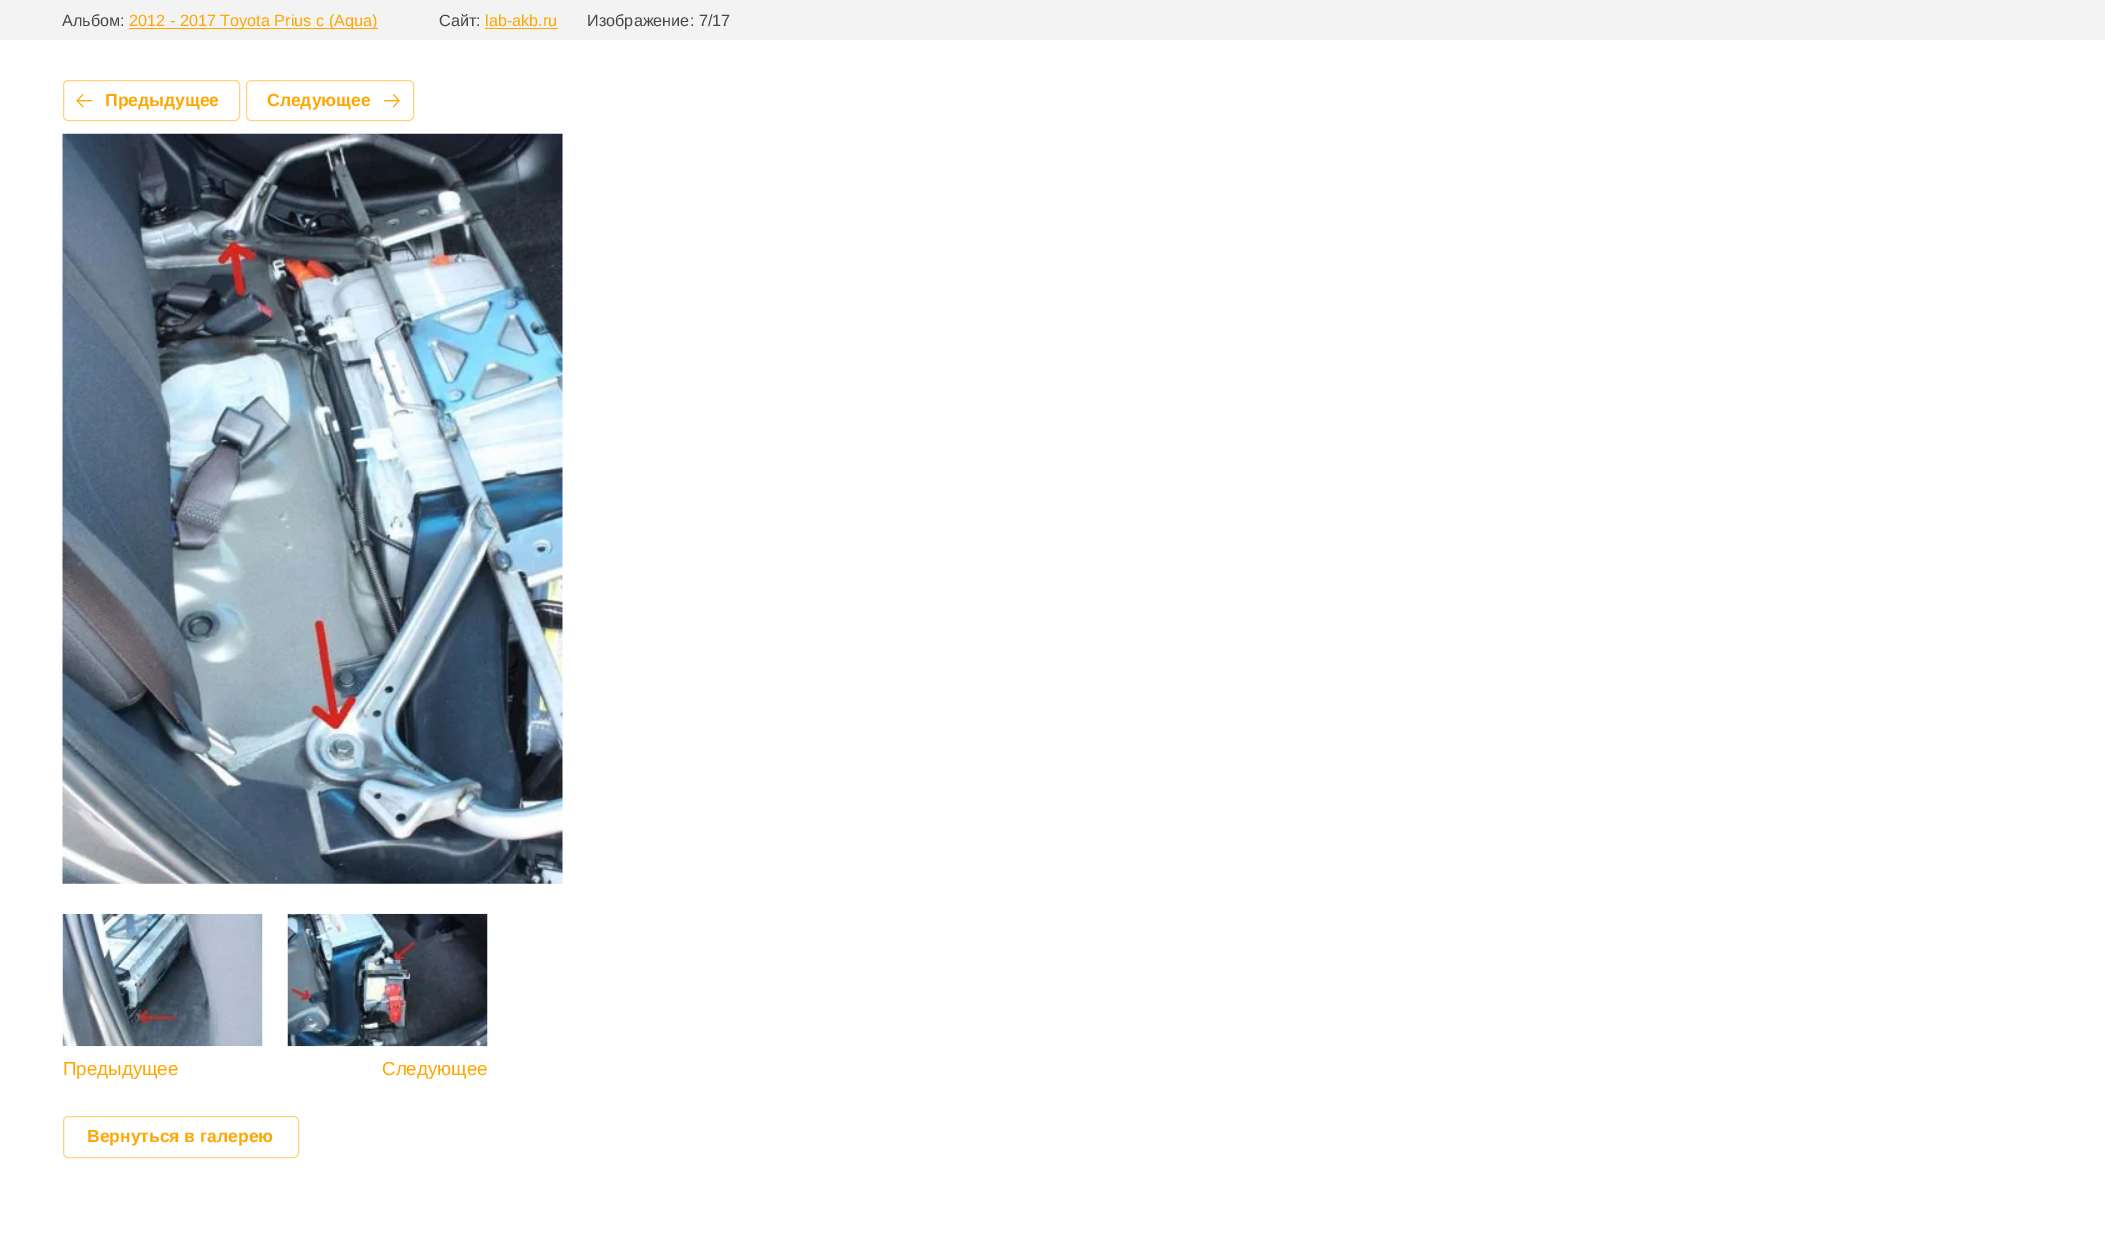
%!PS
<< /PageSize [2105 1248] >> setpagedevice
/rgb { 3 { 255 div 3 1 roll } repeat setrgbcolor } def
/font { [ exch dup neg 0 0 3 -1 roll 0 0 ] selectfont } def
/roundrect { 5 dict begin { /r /h /w /y /x } { exch def } forall
  x r add y moveto x w add y 2 copy h add r arct x w add y h add x 1 index r arct
  x y h add x y r arct x y 2 copy exch w add exch r arct closepath end } def
/picture { 5 dict begin { /h /w /y /x /name } { exch def } forall
  gsave x y translate w h scale
  w h 8 [w 0 0 h 0 0] name (r) file false 3 colorimage grestore end } def
0 1248 translate 1 -1 scale
4 setmiterlimit
255 255 255 rgb
0 0 2105 1248 rectfill
[
  [0 0 2105 40 243 243 243]
  [129 28 249 1 255 166 1]
  [485 28 73 1 255 166 1]
] { aload pop rgb rectfill } forall
255 211 128 rgb
63.5 80.5 176 40 4.5 roundrect stroke
(img/1.rgb) 76 94 17 14 picture
246.5 80.5 167 40 4.5 roundrect stroke
(img/2.rgb) 384 94 16 14 picture
(img/3.rgb) 62 133 501 751 picture
(img/4.rgb) 62 913 201 134 picture
(img/5.rgb) 287 913 201 134 picture
63.5 1116.5 235 41 4.5 roundrect stroke
/LiberationSans-Regular 16.25 font
72 72 72 rgb
62 26 moveto (Альбом:) show
255 166 1 rgb
129 26 moveto (2012 - 2017 Toyota Prius c \(Aqua\)) show
72 72 72 rgb
439 26 moveto (Сайт:) show
255 166 1 rgb
485 26 moveto (lab-akb.ru) show
72 72 72 rgb
587 26 moveto (Изображение: 7/17) show
/LiberationSans-Bold 17.5 font
255 166 1 rgb
105 106 moveto (Предыдущее) show
267 106 moveto (Следующее) show
/LiberationSans-Regular 18.75 font
63 1075 moveto (Предыдущее) show
382 1075 moveto (Следующее) show
/LiberationSans-Bold 17.5 font
87 1142 moveto (Вернуться в галерею) show
showpage
